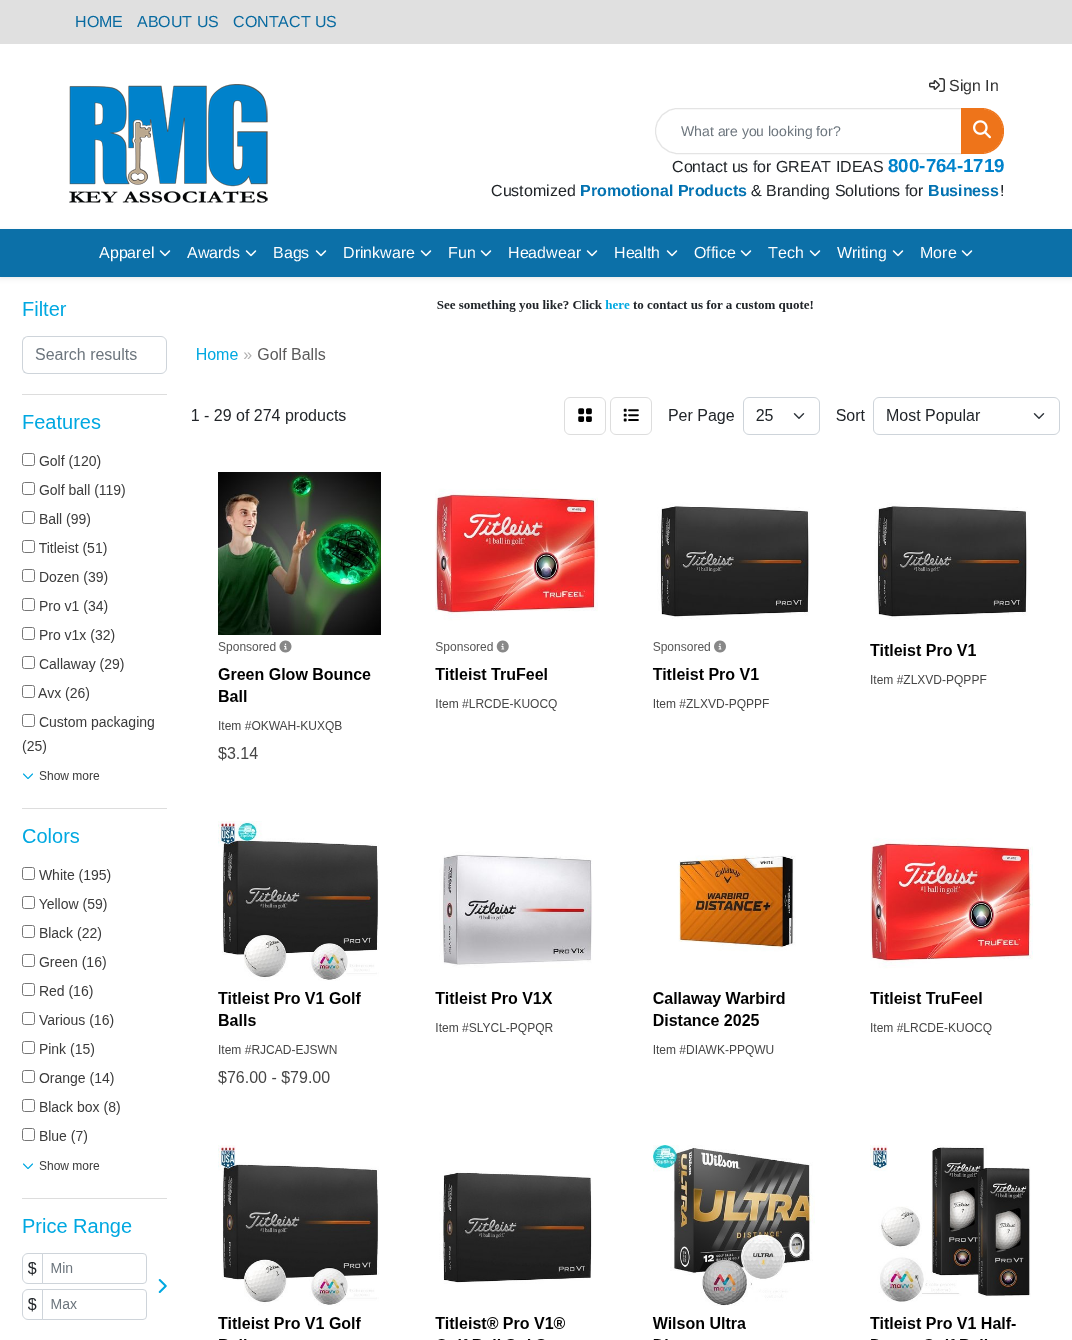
%!PS
<< /PageSize [1072 1340] /PageUsesTransparency true >> setpagedevice
/rgb { 3 { 255 div 3 1 roll } repeat setrgbcolor } def
/font { [ exch dup neg 0 0 3 -1 roll 0 0 ] selectfont } def
/alpha { dup .setfillconstantalpha .setstrokeconstantalpha } def
/roundrect { 5 dict begin { /r /h /w /y /x } { exch def } forall
  x r add y moveto x w add y 2 copy h add r arct x w add y h add x 1 index r arct
  x y h add x y r arct x y 2 copy exch w add exch r arct closepath end } def
/shadow { 12 dict begin { /a /b /q /h /w /y /x } { exch def } forall gsave /was 0 def
  9 -2 -9 { dup b mul 4 div /e exch def 1 sub .425 mul 2.718 exch exp 1 add a .99 .min exch div /now exch def
    1 1 now sub 1 was sub div sub alpha /was now def
    w h .min e 2 mul add 0 gt { x e sub y e sub w e 2 mul add h e 2 mul add
      q e add b .6 mul add w h .min 2 div e add .min 0 .max roundrect fill } if } for grestore end } def
/picture { 5 dict begin { /h /w /y /x /name } { exch def } forall
  gsave x y translate w h scale
  w h 8 [w 0 0 h 0 0] name (r) file false 3 colorimage grestore end } def
0 .pushpdf14devicefilter
0 1340 translate 1 -1 scale
4 setmiterlimit
255 255 255 rgb
0 0 1072 1340 rectfill
224 224 224 rgb
0 0 1072 44 rectfill
(img/1.rgb) 69 84 199 119 picture
(img/2.rgb) 929 78 16 14 picture
228 228 228 rgb
678 108.5 moveto 961.5 108.5 lineto 961.5 153.5 lineto 678 153.5 lineto 665.5 153.5 655.5 143.5 655.5 131 curveto 655.5 118.5 665.5 108.5 678 108.5 curveto closepath stroke
238 116 26 rgb
961 109 moveto 981 109 lineto 993 109 1003 119 1003 131 curveto 1003 143 993 153 981 153 curveto 961 153 lineto closepath fill
961 108 moveto 981 108 lineto 994 108 1004 118 1004 131 curveto 1004 144 994 154 981 154 curveto 961 154 lineto closepath 961 109 moveto 981 109 lineto 993 109 1003 119 1003 131 curveto 1003 143 993 153 981 153 curveto 961 153 lineto closepath eofill
(img/3.rgb) 973 120 18 19 picture
0 0 0 rgb
0 231 1072 48 0 2 0.07 shadow
12 112 168 rgb
0 229 1072 48 rectfill
(img/4.rgb) 159 250 12 7 picture
(img/4.rgb) 245 250 12 7 picture
(img/4.rgb) 315 250 12 7 picture
(img/4.rgb) 420 250 12 7 picture
(img/4.rgb) 480 250 12 7 picture
(img/4.rgb) 586 250 12 7 picture
(img/4.rgb) 666 250 12 7 picture
(img/4.rgb) 740 250 12 7 picture
(img/4.rgb) 809 250 12 7 picture
(img/4.rgb) 892 250 12 7 picture
(img/4.rgb) 961 250 12 7 picture
(img/5.rgb) 22 300 1038 1040 picture
/LiberationSans-Regular 16 font
8 106 160 rgb
[
  [(HOME) 75 27]
  [(ABOUT US) 137 27]
  [(CONTACT US) 233 27]
] { aload pop moveto show } forall
51 51 51 rgb
949 91 moveto (Sign In) show
/LiberationSans-Regular 14 font
108 117 125 rgb
681 136 moveto (What are you looking for?) show
/LiberationSans-Regular 16 font
33 37 41 rgb
672 172 moveto (Contact us for GREAT IDEAS) show
/LiberationSans-Bold 18.75 font
0 130 203 rgb
888 172 moveto (800-764-1719) show
/LiberationSans-Regular 16 font
33 37 41 rgb
491 196 moveto (Customized) show
/LiberationSans-Bold 16 font
3 114 177 rgb
580 196 moveto (Promotional Products) show
/LiberationSans-Regular 16 font
33 37 41 rgb
751 196 moveto (& Branding Solutions for) show
/LiberationSans-Bold 16 font
3 114 177 rgb
928 196 moveto (Business) show
/LiberationSans-Regular 16 font
33 37 41 rgb
1000 196 moveto (!) show
255 255 255 rgb
[
  [(Apparel) 99 258]
  [(Awards) 187 258]
  [(Bags) 273 258]
  [(Drinkware) 343 258]
  [(Fun) 448 258]
  [(Headwear) 508 258]
  [(Health) 614 258]
  [(Office) 694 258]
  [(Tech) 768 258]
  [(Writing) 837 258]
  [(More) 920 258]
] { aload pop moveto show } forall
.poppdf14devicefilter showpage
